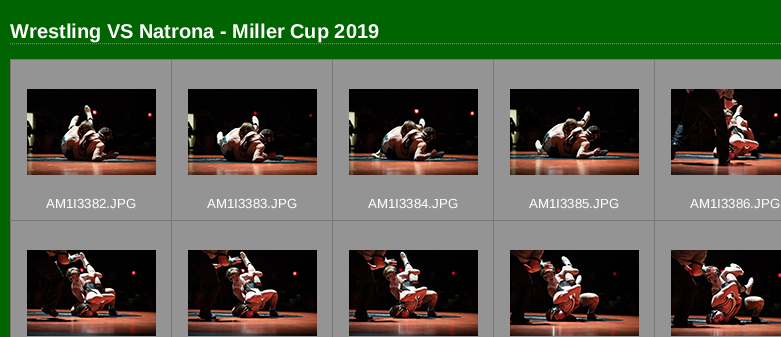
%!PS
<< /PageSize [781 337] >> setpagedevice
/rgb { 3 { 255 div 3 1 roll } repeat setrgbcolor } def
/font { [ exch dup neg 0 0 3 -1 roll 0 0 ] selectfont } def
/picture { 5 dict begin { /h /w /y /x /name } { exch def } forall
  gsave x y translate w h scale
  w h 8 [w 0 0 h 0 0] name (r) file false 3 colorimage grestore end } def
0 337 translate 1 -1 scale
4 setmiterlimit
0 100 0 rgb
0 0 781 337 rectfill
127 127 127 rgb
[1 1] 0 setdash
10 43.5 moveto 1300 43.5 lineto stroke
[
  [11 60 160 160 148 148 148]
  [10 59 771 1 120 120 120]
  [10 59 1 161 120 120 120]
] { aload pop rgb rectfill } forall
(img/1.rgb) 27 89 129 86 picture
148 148 148 rgb
172 60 160 160 rectfill
120 120 120 rgb
171 59 1 161 rectfill
(img/2.rgb) 188 89 129 86 picture
148 148 148 rgb
333 60 160 160 rectfill
120 120 120 rgb
332 59 1 161 rectfill
(img/3.rgb) 349 89 129 86 picture
148 148 148 rgb
494 60 160 160 rectfill
120 120 120 rgb
493 59 1 161 rectfill
(img/4.rgb) 510 89 129 86 picture
148 148 148 rgb
655 60 126 160 rectfill
120 120 120 rgb
654 59 1 161 rectfill
(img/5.rgb) 671 89 110 86 picture
[
  [11 221 160 116 148 148 148]
  [10 220 771 1 120 120 120]
  [10 220 1 117 120 120 120]
] { aload pop rgb rectfill } forall
(img/6.rgb) 27 250 129 86 picture
148 148 148 rgb
172 221 160 116 rectfill
120 120 120 rgb
171 220 1 117 rectfill
(img/7.rgb) 188 250 129 86 picture
148 148 148 rgb
333 221 160 116 rectfill
120 120 120 rgb
332 220 1 117 rectfill
(img/8.rgb) 349 250 129 86 picture
148 148 148 rgb
494 221 160 116 rectfill
120 120 120 rgb
493 220 1 117 rectfill
(img/9.rgb) 510 250 129 86 picture
148 148 148 rgb
655 221 126 116 rectfill
120 120 120 rgb
654 220 1 117 rectfill
(img/10.rgb) 671 250 110 86 picture
/LiberationSans-Bold 20 font
255 255 255 rgb
10 38 moveto (Wrestling VS Natrona - Miller Cup 2019) show
/LiberationSans-Regular 13.25 font
[
  [(AM1I3382.JPG) 46 208]
  [(AM1I3383.JPG) 207 208]
  [(AM1I3384.JPG) 368 208]
  [(AM1I3385.JPG) 529 208]
  [(AM1I3386.JPG) 690 208]
] { aload pop moveto show } forall
showpage
